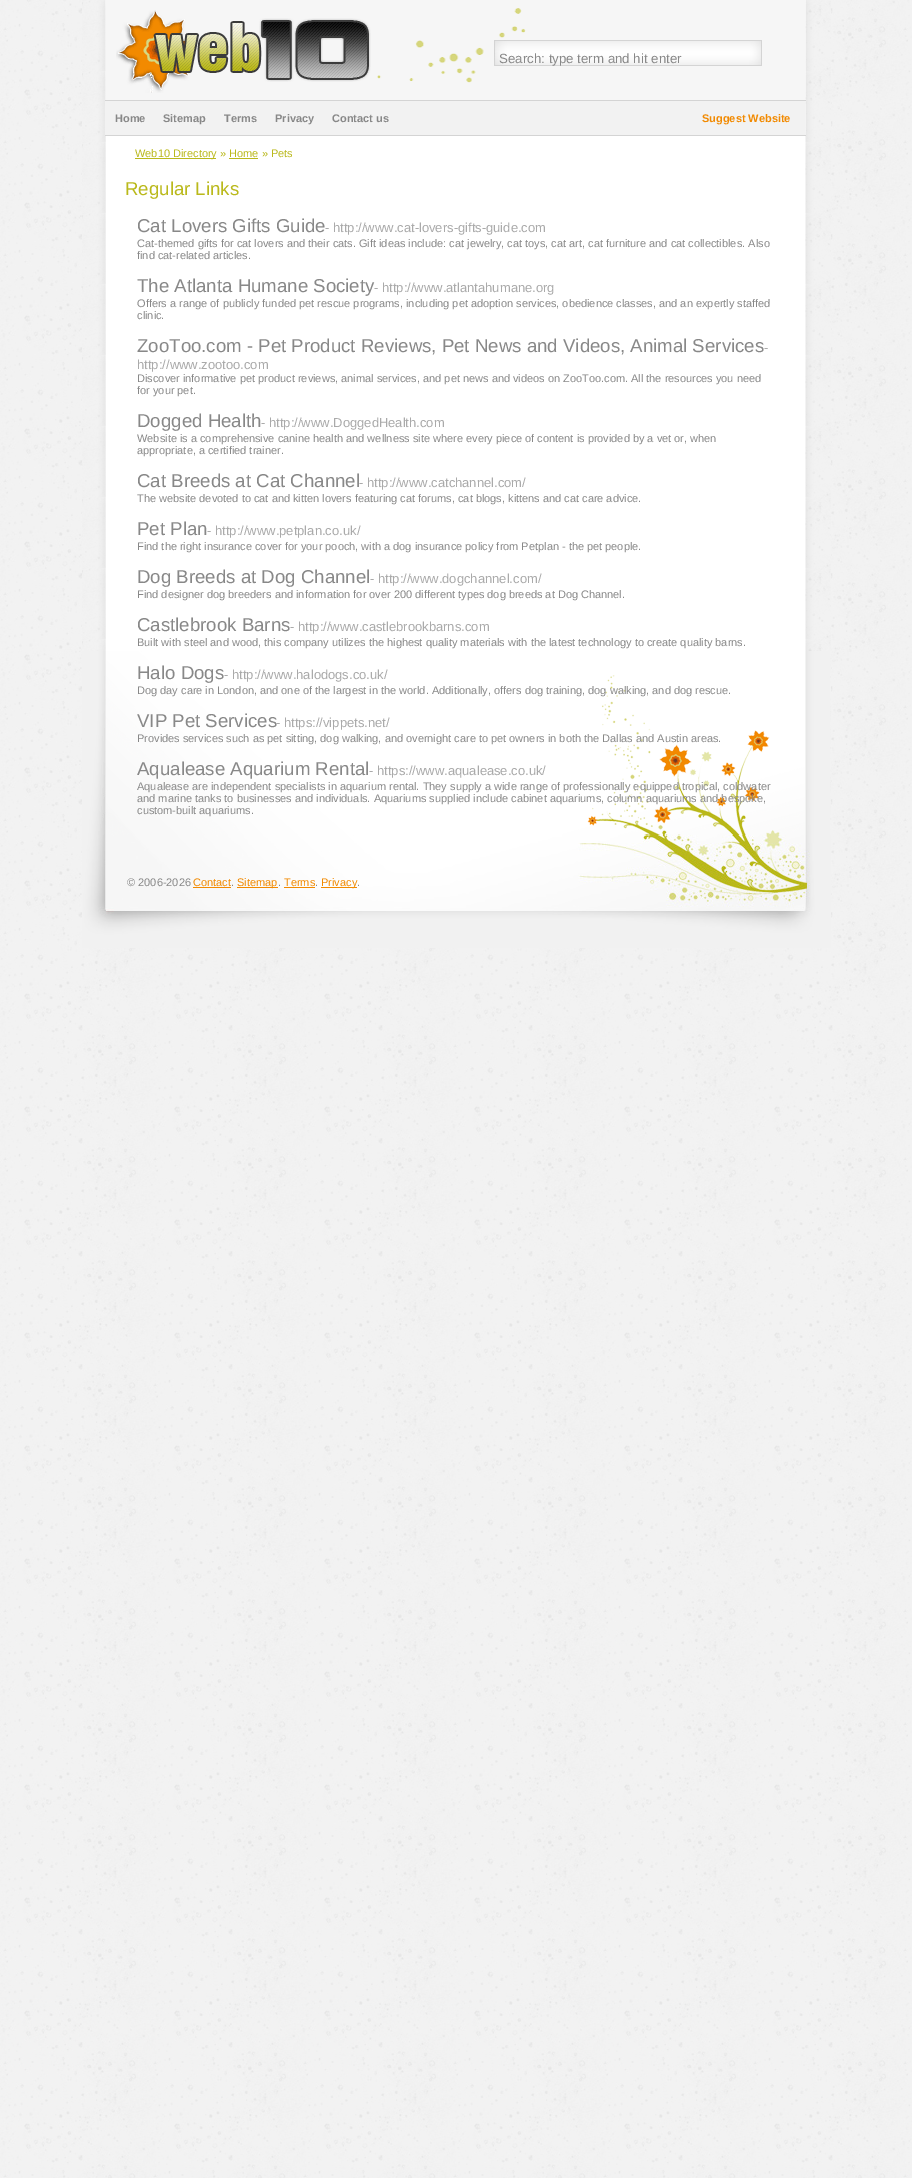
%!PS
<< /PageSize [912 2178] >> setpagedevice
/rgb { 3 { 255 div 3 1 roll } repeat setrgbcolor } def
/font { [ exch dup neg 0 0 3 -1 roll 0 0 ] selectfont } def
/picture { 5 dict begin { /h /w /y /x /name } { exch def } forall
  gsave x y translate w h scale
  w h 8 [w 0 0 h 0 0] name (r) file false 3 colorimage grestore end } def
0 2178 translate 1 -1 scale
4 setmiterlimit
255 255 255 rgb
0 0 912 2178 rectfill
(img/1.rgb) 0 0 912 2178 picture
(img/2.rgb) 82 100 749 735 picture
(img/3.rgb) 82 0 749 100 picture
(img/4.rgb) 116 10 255 83 picture
(img/5.rgb) 377 8 191 75 picture
246 246 246 rgb
498 43 70 30 rectfill
(img/6.rgb) 494 40 268 26 picture
[
  [105 101 700 34 242 242 242]
  [105 100 701 1 212 212 212]
  [105 135 701 1 212 212 212]
  [135 158 81 1 186 185 27]
  [229 158 29 1 186 185 27]
] { aload pop rgb rectfill } forall
(img/7.rgb) 82 651 748 184 picture
(img/8.rgb) 82 835 749 113 picture
[
  [193 887 38 1 242 138 0]
  [237 887 41 1 242 138 0]
  [284 887 31 1 242 138 0]
  [321 887 36 1 242 138 0]
] { aload pop rgb rectfill } forall
/LiberationSans-Regular 13.3 font
136 136 136 rgb
499 63 moveto (Search: type term and hit enter) show
/LiberationSans-Bold 11 font
[
  [(Home) 115 122]
  [(Sitemap) 163 122]
  [(Terms) 224 122]
  [(Privacy) 275 122]
  [(Contact us) 332 122]
] { aload pop moveto show } forall
242 138 0 rgb
702 122 moveto (Suggest Website) show
/LiberationSans-Regular 11 font
186 185 27 rgb
135 157 moveto (Web10 Directory » Home » Pets) show
/LiberationSans-Regular 18.65 font
125 195 moveto (Regular Links) show
136 136 136 rgb
137 232 moveto (Cat Lovers Gifts Guide) show
/LiberationSans-Regular 13 font
170 170 170 rgb
325 232 moveto (- http://www.cat-lovers-gifts-guide.com) show
/LiberationSans-Regular 11 font
136 136 136 rgb
137 247 moveto (Cat-themed gifts for cat lovers and their cats. Gift ideas include: cat jewelry, cat toys, cat art, cat furniture and cat collectibles. Also) show
137 259 moveto (find cat-related articles.) show
/LiberationSans-Regular 18.65 font
137 292 moveto (The Atlanta Humane Society) show
/LiberationSans-Regular 13 font
170 170 170 rgb
374 292 moveto (- http://www.atlantahumane.org) show
/LiberationSans-Regular 11 font
136 136 136 rgb
137 307 moveto (Offers a range of publicly funded pet rescue programs, including pet adoption services, obedience classes, and an expertly staffed) show
137 319 moveto (clinic.) show
/LiberationSans-Regular 18.65 font
137 352 moveto (ZooToo.com - Pet Product Reviews, Pet News and Videos, Animal Services) show
/LiberationSans-Regular 13 font
170 170 170 rgb
764 352 moveto (-) show
137 369 moveto (http://www.zootoo.com) show
/LiberationSans-Regular 11 font
136 136 136 rgb
137 382 moveto (Discover informative pet product reviews, animal services, and pet news and videos on ZooToo.com. All the resources you need) show
137 394 moveto (for your pet.) show
/LiberationSans-Regular 18.65 font
137 427 moveto (Dogged Health) show
/LiberationSans-Regular 13 font
170 170 170 rgb
261 427 moveto (- http://www.DoggedHealth.com) show
/LiberationSans-Regular 11 font
136 136 136 rgb
137 442 moveto (Website is a comprehensive canine health and wellness site where every piece of content is provided by a vet or, when) show
137 454 moveto (appropriate, a certified trainer.) show
/LiberationSans-Regular 18.65 font
137 487 moveto (Cat Breeds at Cat Channel) show
/LiberationSans-Regular 13 font
170 170 170 rgb
359 487 moveto (- http://www.catchannel.com/) show
/LiberationSans-Regular 11 font
136 136 136 rgb
137 502 moveto (The website devoted to cat and kitten lovers featuring cat forums, cat blogs, kittens and cat care advice.) show
/LiberationSans-Regular 18.65 font
137 535 moveto (Pet Plan) show
/LiberationSans-Regular 13 font
170 170 170 rgb
207 535 moveto (- http://www.petplan.co.uk/) show
/LiberationSans-Regular 11 font
136 136 136 rgb
137 550 moveto (Find the right insurance cover for your pooch, with a dog insurance policy from Petplan - the pet people.) show
/LiberationSans-Regular 18.65 font
137 583 moveto (Dog Breeds at Dog Channel) show
/LiberationSans-Regular 13 font
170 170 170 rgb
370 583 moveto (- http://www.dogchannel.com/) show
/LiberationSans-Regular 11 font
136 136 136 rgb
137 598 moveto (Find designer dog breeders and information for over 200 different types dog breeds at Dog Channel.) show
/LiberationSans-Regular 18.65 font
137 631 moveto (Castlebrook Barns) show
/LiberationSans-Regular 13 font
170 170 170 rgb
290 631 moveto (- http://www.castlebrookbarns.com) show
/LiberationSans-Regular 11 font
136 136 136 rgb
137 646 moveto (Built with steel and wood, this company utilizes the highest quality materials with the latest technology to create quality barns.) show
/LiberationSans-Regular 18.65 font
137 679 moveto (Halo Dogs) show
/LiberationSans-Regular 13 font
170 170 170 rgb
224 679 moveto (- http://www.halodogs.co.uk/) show
/LiberationSans-Regular 11 font
136 136 136 rgb
137 694 moveto (Dog day care in London, and one of the largest in the world. Additionally, offers dog training, dog walking, and dog rescue.) show
/LiberationSans-Regular 18.65 font
137 727 moveto (VIP Pet Services) show
/LiberationSans-Regular 13 font
170 170 170 rgb
276 727 moveto (- https://vippets.net/) show
/LiberationSans-Regular 11 font
136 136 136 rgb
137 742 moveto (Provides services such as pet sitting, dog walking, and overnight care to pet owners in both the Dallas and Austin areas.) show
/LiberationSans-Regular 18.65 font
137 775 moveto (Aqualease Aquarium Rental) show
/LiberationSans-Regular 13 font
170 170 170 rgb
369 775 moveto (- https://www.aqualease.co.uk/) show
/LiberationSans-Regular 11 font
136 136 136 rgb
[
  [(Aqualease are independent specialists in aquarium rental. They supply a wide range of professionally equipped tropical, coldwater) 137 790]
  [(and marine tanks to businesses and individuals. Aquariums supplied include cabinet aquariums, column aquariums and bespoke,) 137 802]
  [(custom-built aquariums.) 137 814]
  [(© 2006-2026) 127 886]
] { aload pop moveto show } forall
242 138 0 rgb
193 886 moveto (Contact) show
136 136 136 rgb
231 886 moveto (.) show
242 138 0 rgb
237 886 moveto (Sitemap) show
136 136 136 rgb
278 886 moveto (.) show
242 138 0 rgb
284 886 moveto (Terms) show
136 136 136 rgb
315 886 moveto (.) show
242 138 0 rgb
321 886 moveto (Privacy) show
136 136 136 rgb
357 886 moveto (.) show
showpage
